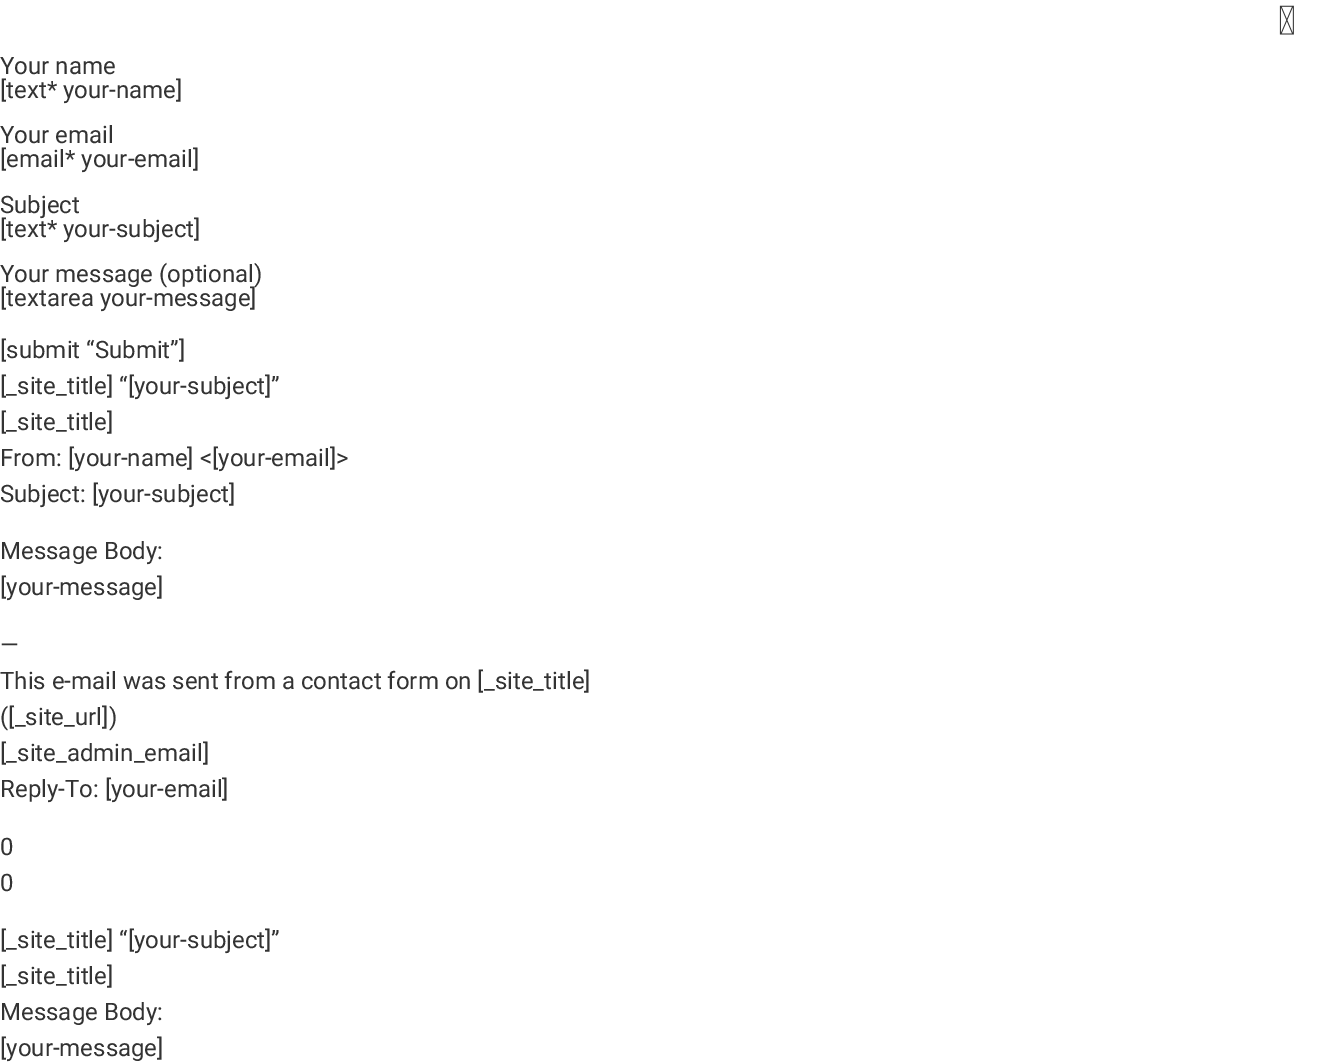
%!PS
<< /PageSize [1336 1064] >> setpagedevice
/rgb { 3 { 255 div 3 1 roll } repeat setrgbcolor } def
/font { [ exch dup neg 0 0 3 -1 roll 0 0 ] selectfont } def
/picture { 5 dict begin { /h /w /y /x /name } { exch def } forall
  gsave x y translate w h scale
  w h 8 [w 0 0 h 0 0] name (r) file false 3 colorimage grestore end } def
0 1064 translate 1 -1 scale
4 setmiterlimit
255 255 255 rgb
0 0 1336 1064 rectfill
(img/1.rgb) 1279 5 15 30 picture
/Roboto-Regular 24 font
51 51 51 rgb
[
  [(Your name) 0 74]
  [([text* your-name]) 0 98]
  [(Your email) 0 143]
  [([email* your-email]) 0 167]
  [(Subject) 0 213]
  [([text* your-subject]) 0 237]
  [(Your message \(optional\)) 0 282]
  [([textarea your-message]) 0 306]
  [([submit “Submit”]) 0 358]
  [([_site_title] “[your-subject]”) 0 394]
  [([_site_title]) 0 430]
  [(From: [your-name] <[your-email]>) 0 466]
  [(Subject: [your-subject]) 0 502]
  [(Message Body:) 0 559]
  [([your-message]) 0 595]
  [(—) 0 653]
  [(This e-mail was sent from a contact form on [_site_title]) 0 689]
  [(\([_site_url]\)) 0 725]
  [([_site_admin_email]) 0 761]
  [(Reply-To: [your-email]) 0 797]
  [(0) 0 855]
  [(0) 0 891]
  [([_site_title] “[your-subject]”) 0 948]
  [([_site_title]) 0 984]
  [(Message Body:) 0 1020]
  [([your-message]) 0 1056]
] { aload pop moveto show } forall
showpage
